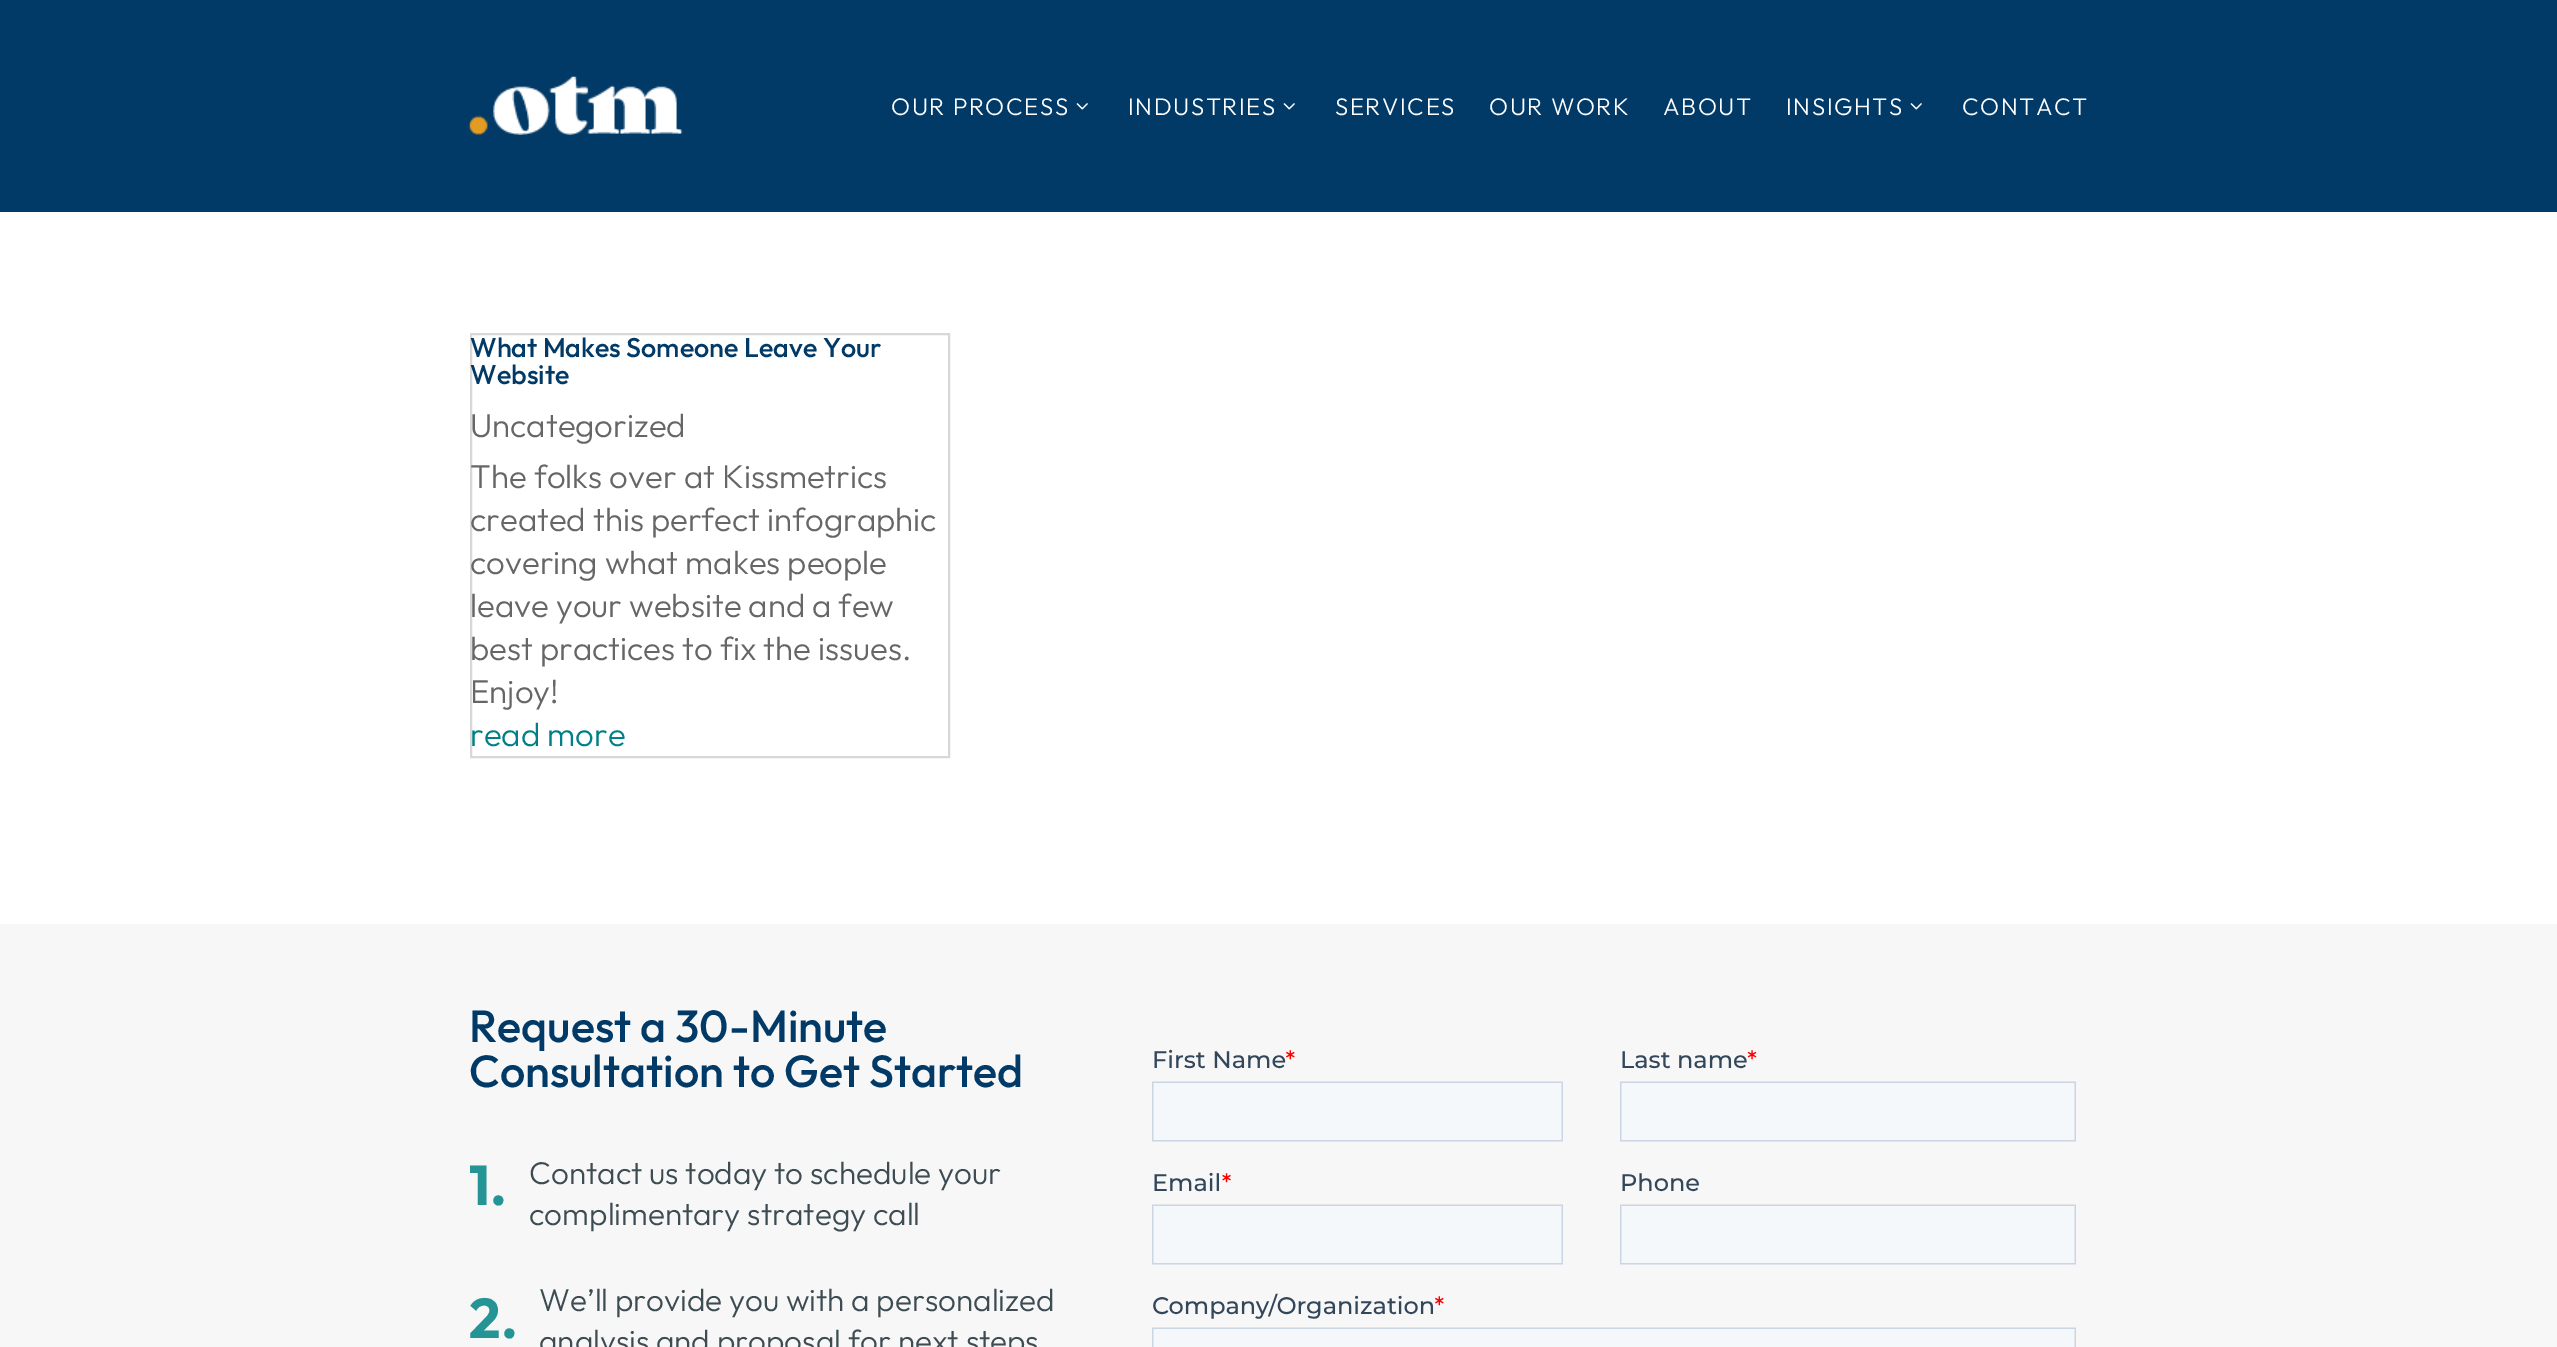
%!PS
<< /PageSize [2557 1347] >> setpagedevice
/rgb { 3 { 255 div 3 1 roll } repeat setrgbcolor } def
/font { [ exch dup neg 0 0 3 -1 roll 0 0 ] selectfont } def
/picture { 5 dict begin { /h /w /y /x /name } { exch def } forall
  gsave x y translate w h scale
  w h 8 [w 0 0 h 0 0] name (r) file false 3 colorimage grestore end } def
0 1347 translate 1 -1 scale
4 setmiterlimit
255 255 255 rgb
0 0 2557 1347 rectfill
2 58 103 rgb
0 0 2557 212 rectfill
(img/1.rgb) 469 76 214 59 picture
(img/2.rgb) 1076 103 12 7 picture
(img/2.rgb) 1283 103 12 7 picture
(img/2.rgb) 1910 103 12 7 picture
216 216 216 rgb
2 setlinewidth
471 334 478 423 rectstroke
247 247 247 rgb
0 924 2557 423 rectfill
(img/3.rgb) 1152 1049 924 298 picture
/Outfit-Light 24 font
255 255 255 rgb
891 115 moveto 1.5 0 (OUR PROCESS) ashow
1128 115 moveto 1.5 0 (INDUSTRIES) ashow
1335 115 moveto 1.5 0 (SERVICES) ashow
1489 115 moveto 1.5 0 (OUR WORK) ashow
1663 115 moveto 1.5 0 (ABOUT) ashow
1786 115 moveto 1.5 0 (INSIGHTS) ashow
1962 115 moveto 1.5 0 (CONTACT) ashow
/Outfit-Medium 27 font
2 58 103 rgb
470 357 moveto (What Makes Someone Leave Your) show
470 384 moveto (Website) show
/Outfit-Light 33 font
102 102 102 rgb
[
  [(Uncategorized) 470 437]
  [(The folks over at Kissmetrics) 470 488]
  [(created this perfect infographic) 470 531]
  [(covering what makes people) 470 574]
  [(leave your website and a few) 470 617]
  [(best practices to fix the issues.) 470 660]
  [(Enjoy!) 470 703]
] { aload pop moveto show } forall
0 127 136 rgb
470 746 moveto (read more) show
/Outfit-Medium 45 font
2 58 103 rgb
469 1042 moveto (Request a 30-Minute) show
469 1087 moveto (Consultation to Get Started) show
/Outfit-Bold 56 font
37 148 148 rgb
469 1205 moveto (1.) show
/Outfit-Light 31.5 font
61 76 83 rgb
529 1184 moveto (Contact us today to schedule your) show
529 1225 moveto (complimentary strategy call) show
/Outfit-Bold 56 font
37 148 148 rgb
469 1338 moveto (2.) show
/Outfit-Light 31.5 font
61 76 83 rgb
539 1311 moveto (We’ll provide you with a personalized) show
539 1352 moveto (analysis and proposal for next steps) show
showpage
